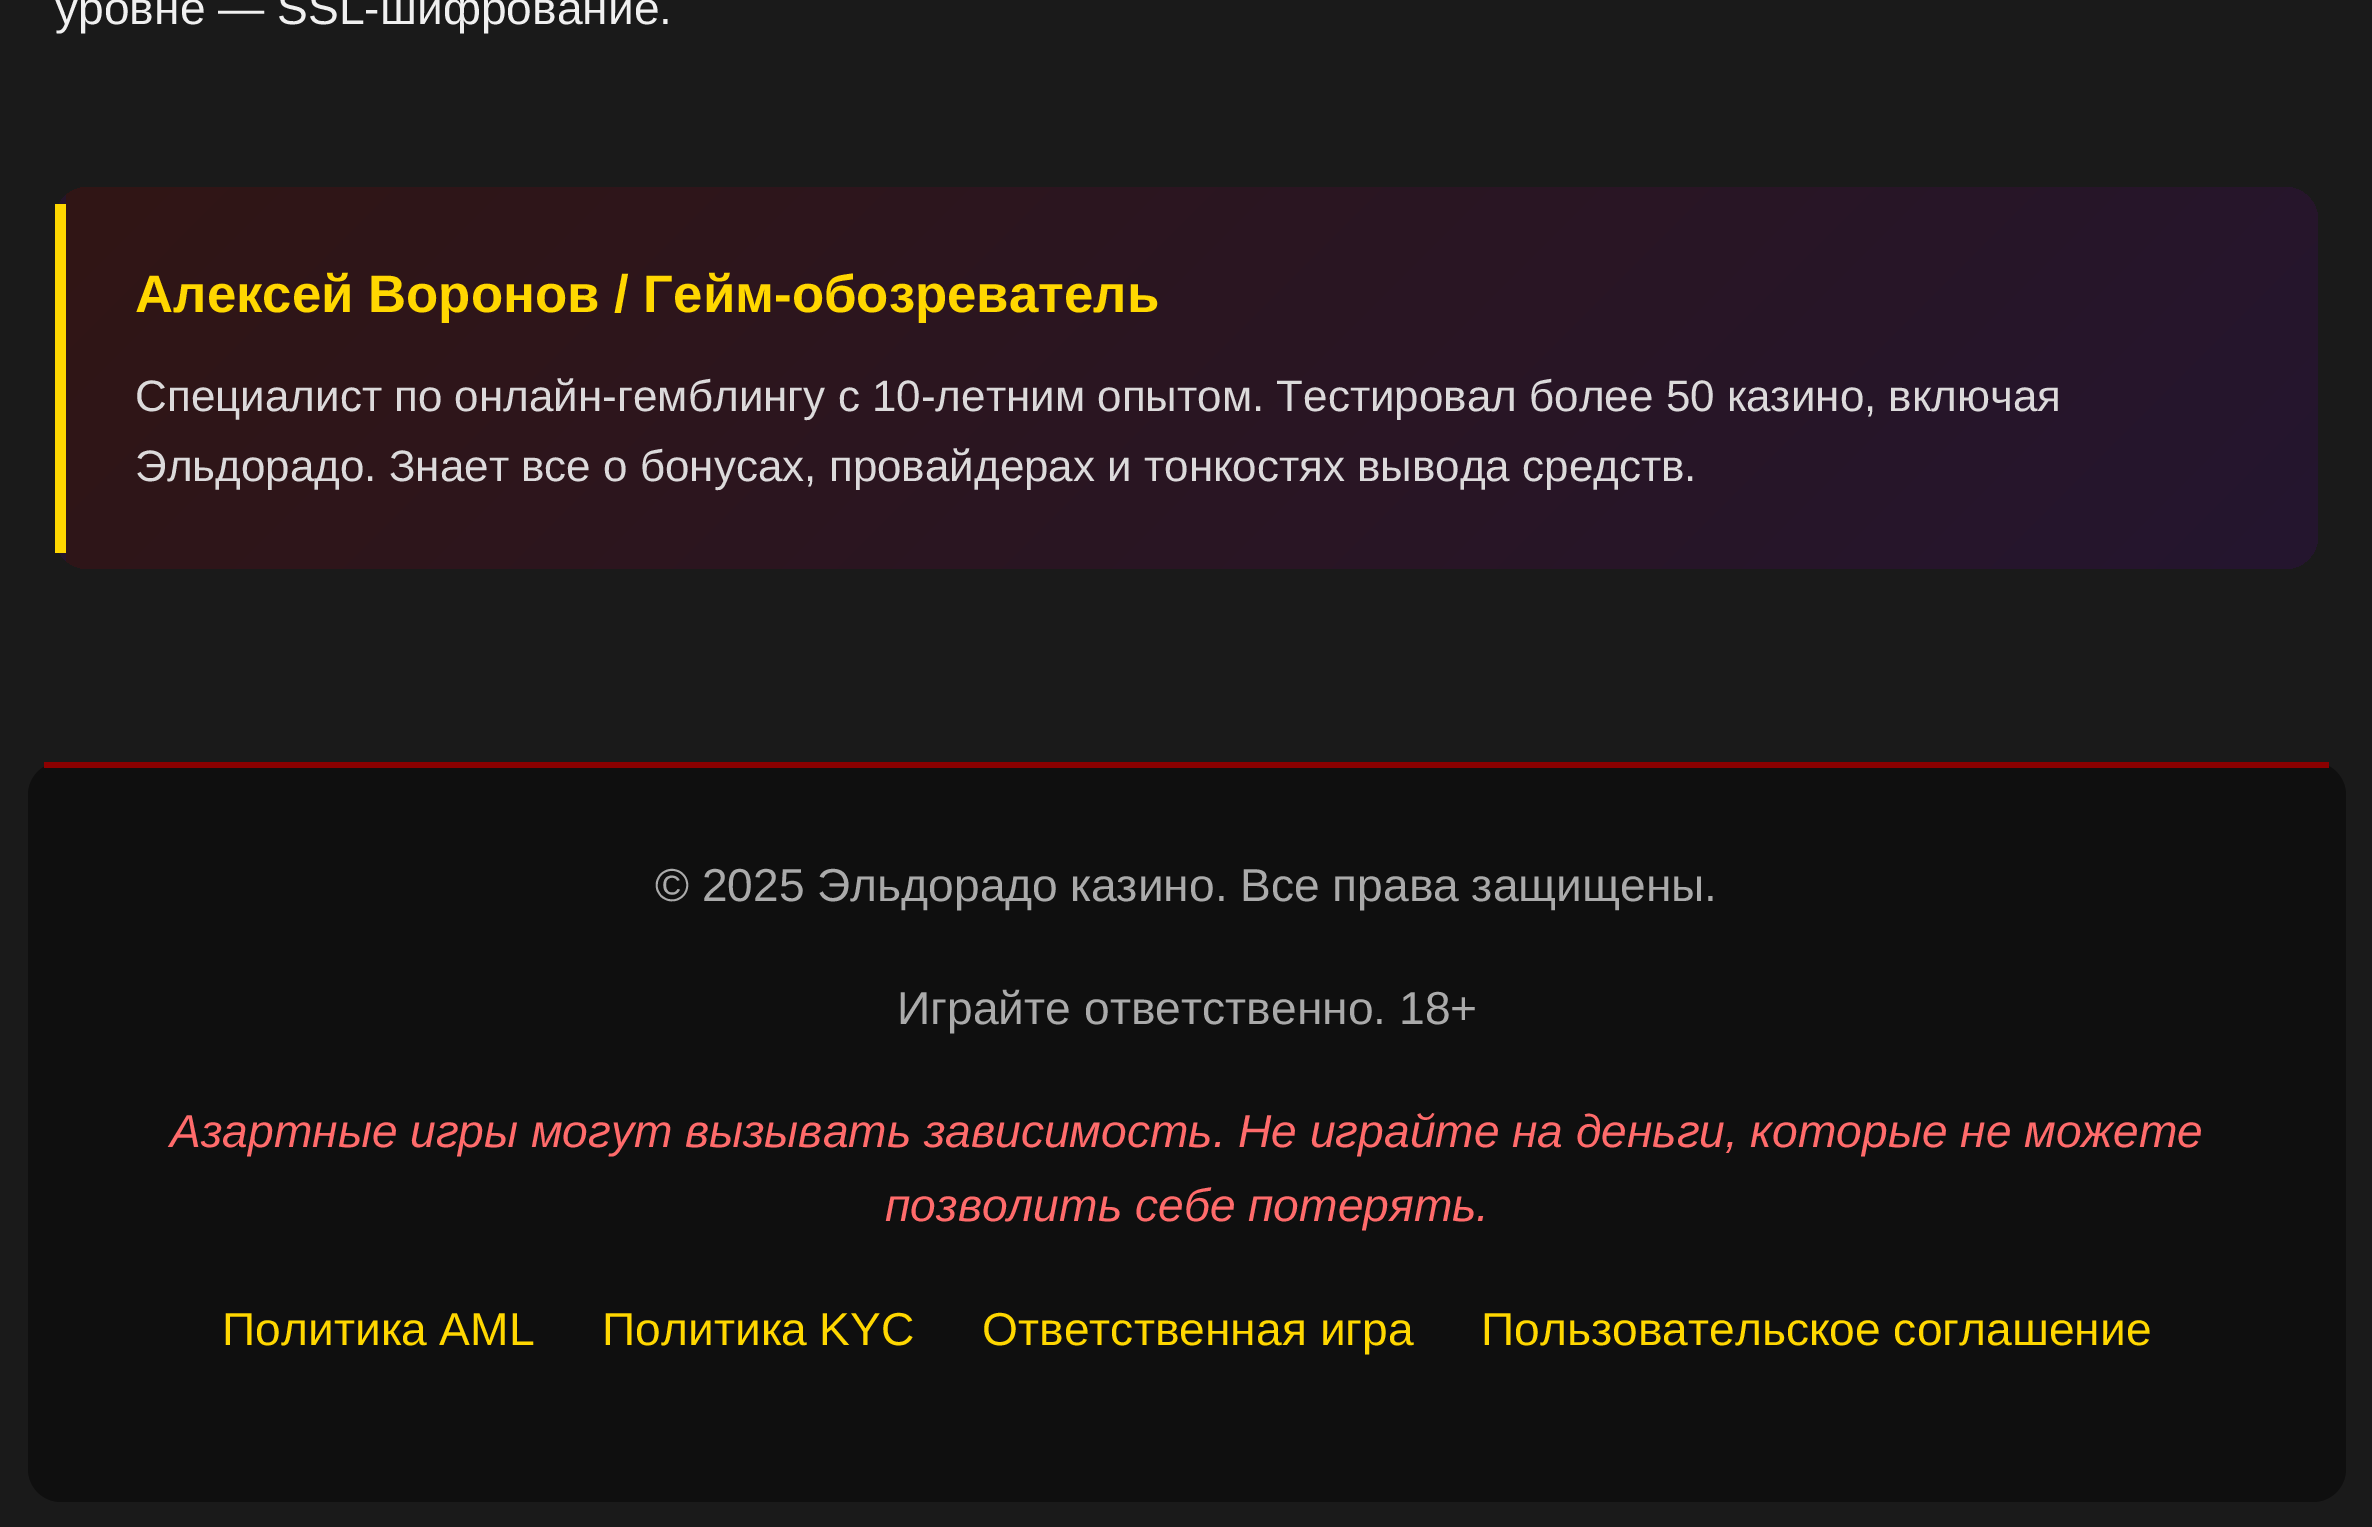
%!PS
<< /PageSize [2372 1527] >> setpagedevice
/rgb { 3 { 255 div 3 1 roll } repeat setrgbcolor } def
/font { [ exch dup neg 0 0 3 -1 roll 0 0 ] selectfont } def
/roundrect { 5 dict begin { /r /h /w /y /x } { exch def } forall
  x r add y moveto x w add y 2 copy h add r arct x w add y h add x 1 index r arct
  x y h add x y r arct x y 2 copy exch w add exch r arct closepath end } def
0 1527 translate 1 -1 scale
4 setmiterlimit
26 26 26 rgb
0 0 2372 1527 rectfill
gsave
55 187 2263 382 33 roundrect clip newpath
gsave 59 195 moveto 66 195 lineto 66 561 lineto 59 561 lineto closepath clip newpath
<< /ShadingType 2 /ColorSpace /DeviceRGB /Coords [-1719 -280 -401 1037] /Extend [true true] /Function << /FunctionType 2 /Domain [0 1] /C0 [0.192 0.082 0.082] /C1 [0.141 0.082 0.184] /N 1 >> >> shfill grestore
gsave 66 187 moveto 2285 187 lineto 2303 187 2318 202 2318 220 curveto 2318 536 lineto 2318 554 2303 569 2285 569 curveto 66 569 lineto closepath clip newpath
<< /ShadingType 2 /ColorSpace /DeviceRGB /Coords [533 -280 1851 1037] /Extend [true true] /Function << /FunctionType 2 /Domain [0 1] /C0 [0.192 0.082 0.082] /C1 [0.141 0.082 0.184] /N 1 >> >> shfill grestore
grestore
255 215 0 rgb
55 204 11 349 rectfill
15 15 15 rgb
28 762 2318 740 33 roundrect fill
139 0 0 rgb
44 762 2285 6 rectfill
/LiberationSans-Regular 46.2 font
240 240 240 rgb
55 24 moveto (уровне — SSL-шифрование.) show
/LiberationSans-Bold 52.75 font
255 215 0 rgb
135 312 moveto (Алексей Воронов / Гейм-обозреватель) show
/LiberationSans-Regular 44 font
220 218 219 rgb
135 411 moveto (Специалист по онлайн-гемблингу с 10-летним опытом. Тестировал более 50 казино, включая) show
135 481 moveto (Эльдорадо. Знает все о бонусах, провайдерах и тонкостях вывода средств.) show
/LiberationSans-Regular 46.2 font
170 170 170 rgb
655 901 moveto -0.25 0 32 (© 2025 Эльдорадо казино. Все права защищены.) widthshow
897 1024 moveto (Играйте ответственно. 18+) show
/LiberationSans-Italic 46.2 font
255 107 107 rgb
170 1147 moveto -0.25 0 32 (Азартные игры могут вызывать зависимость. Не играйте на деньги, которые не можете) widthshow
885 1221 moveto (позволить себе потерять.) show
/LiberationSans-Regular 46.2 font
255 215 0 rgb
[
  [(Политика AML) 222 1345]
  [(Политика KYC) 602 1345]
  [(Ответственная игра) 982 1345]
  [(Пользовательское соглашение) 1481 1345]
] { aload pop moveto show } forall
showpage
